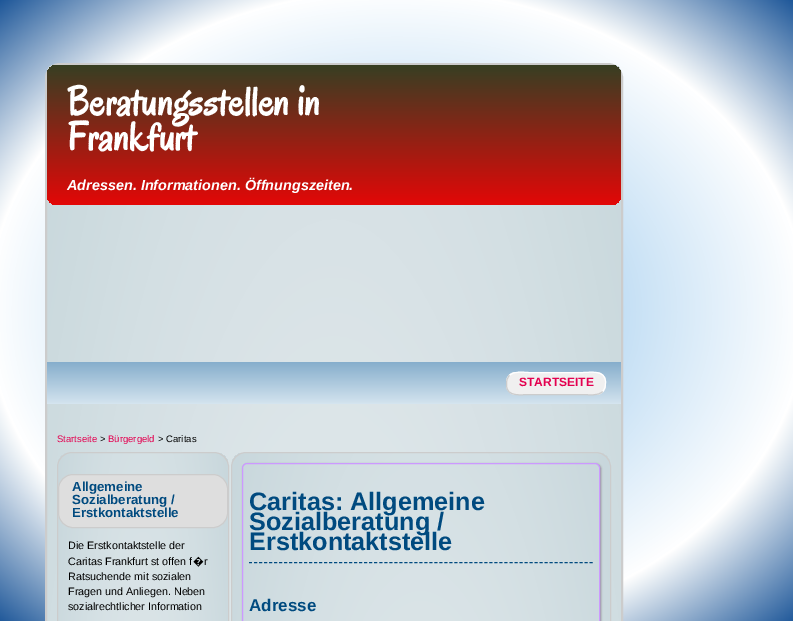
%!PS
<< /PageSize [793 621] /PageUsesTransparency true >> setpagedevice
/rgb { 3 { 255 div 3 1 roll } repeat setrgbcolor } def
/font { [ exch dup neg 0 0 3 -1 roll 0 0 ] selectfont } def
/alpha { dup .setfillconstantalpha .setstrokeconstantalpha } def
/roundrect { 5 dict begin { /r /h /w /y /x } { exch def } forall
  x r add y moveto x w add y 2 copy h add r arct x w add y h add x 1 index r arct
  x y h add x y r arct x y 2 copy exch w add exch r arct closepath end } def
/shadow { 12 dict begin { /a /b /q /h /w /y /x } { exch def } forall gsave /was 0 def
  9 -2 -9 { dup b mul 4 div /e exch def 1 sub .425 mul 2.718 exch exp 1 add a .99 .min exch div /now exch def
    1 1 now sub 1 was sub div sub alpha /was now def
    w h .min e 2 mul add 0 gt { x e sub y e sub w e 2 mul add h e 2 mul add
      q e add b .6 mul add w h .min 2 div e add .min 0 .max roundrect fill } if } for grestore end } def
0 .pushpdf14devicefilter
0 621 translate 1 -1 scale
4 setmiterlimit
255 255 255 rgb
0 0 793 621 rectfill
gsave 0 0 moveto 793 0 lineto 793 621 lineto 0 621 lineto closepath clip newpath 397 312 translate 561 441 scale
<< /ShadingType 3 /ColorSpace /DeviceRGB /Coords [0 0 0 0 0 1] /Extend [true true] /Function << /FunctionType 3 /Domain [0 1] /Functions [<< /FunctionType 2 /Domain [0 1] /C0 [0.49 0.725 0.91] /C1 [1 1 1] /N 1 >> << /FunctionType 2 /Domain [0 1] /C0 [1 1 1] /C1 [0.118 0.341 0.6] /N 1 >>] /Bounds [0.73] /Encode [0 1 0 1] >> >> shfill grestore
gsave
45 63 578 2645 15 roundrect clip newpath
gsave 47 65 moveto 621 65 lineto 621 621 lineto 47 621 lineto closepath clip newpath 334 1386 translate 406 1867 scale
<< /ShadingType 3 /ColorSpace /DeviceRGB /Coords [0 0 0 0 0 1] /Extend [true true] /Function << /FunctionType 3 /Domain [0 1] /Functions [<< /FunctionType 2 /Domain [0 1] /C0 [0.949 0.961 0.965] /C1 [0.89 0.918 0.929] /N 1 >> << /FunctionType 2 /Domain [0 1] /C0 [0.89 0.918 0.929] /C1 [0.784 0.843 0.863] /N 1 >>] /Bounds [0.37] /Encode [0 1 0 1] >> >> shfill grestore
grestore
204 204 204 rgb
2 setlinewidth
46 64 576 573 14 roundrect stroke
gsave 47 65 574 140 10 roundrect clip newpath
<< /ShadingType 2 /ColorSpace /DeviceRGB /Coords [334 65 334 205] /Extend [true true] /Function << /FunctionType 2 /Domain [0 1] /C0 [0.216 0.247 0.137] /C1 [0.89 0.027 0.027] /N 1 >> >> shfill grestore
gsave 47 362 moveto 621 362 lineto 621 404 lineto 47 404 lineto closepath clip newpath
<< /ShadingType 2 /ColorSpace /DeviceRGB /Coords [334 362 334 404] /Extend [true true] /Function << /FunctionType 2 /Domain [0 1] /C0 [0.525 0.682 0.8] /C1 [0.831 0.894 0.937] /N 1 >> >> shfill grestore
240 240 240 rgb
506 372 100 23 10 roundrect fill
255 255 255 rgb
1 setlinewidth
509.5 375.5 moveto 514 370.5 524 372.5 529.5 372.5 curveto 582.5 372.5 lineto 590.5 372.5 605.5 369.5 605.5 382 curveto 605.5 385.5 605.5 389 602.5 391.5 curveto stroke
204 204 204 rgb
602.5 391.5 moveto 598 396.5 588 394.5 582.5 394.5 curveto 529.5 394.5 lineto 521.5 394.5 506.5 397.5 506.5 385 curveto 506.5 381.5 506.5 378 509.5 375.5 curveto stroke
gsave
57 452 172 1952 15 roundrect clip newpath
gsave 58 453 moveto 228 453 lineto 228 621 lineto 58 621 lineto closepath clip newpath 143 1428 translate 120 1379 scale
<< /ShadingType 3 /ColorSpace /DeviceRGB /Coords [0 0 0 0 0 1] /Extend [true true] /Function << /FunctionType 3 /Domain [0 1] /Functions [<< /FunctionType 2 /Domain [0 1] /C0 [0.949 0.961 0.965] /C1 [0.89 0.918 0.929] /N 1 >> << /FunctionType 2 /Domain [0 1] /C0 [0.89 0.918 0.929] /C1 [0.784 0.843 0.863] /N 1 >>] /Bounds [0.37] /Encode [0 1 0 1] >> >> shfill grestore
grestore
57.5 452.5 171 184 14.5 roundrect stroke
222 222 222 rgb
58.5 474.5 169 53 14.5 roundrect gsave fill grestore
204 204 204 rgb
stroke
gsave
231 452 380 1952 15 roundrect clip newpath
gsave 232 453 moveto 610 453 lineto 610 621 lineto 232 621 lineto closepath clip newpath 421 1428 translate 267 1379 scale
<< /ShadingType 3 /ColorSpace /DeviceRGB /Coords [0 0 0 0 0 1] /Extend [true true] /Function << /FunctionType 3 /Domain [0 1] /Functions [<< /FunctionType 2 /Domain [0 1] /C0 [0.949 0.961 0.965] /C1 [0.89 0.918 0.929] /N 1 >> << /FunctionType 2 /Domain [0 1] /C0 [0.89 0.918 0.929] /C1 [0.784 0.843 0.863] /N 1 >>] /Bounds [0.37] /Encode [0 1 0 1] >> >> shfill grestore
grestore
231.5 452.5 379 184 14.5 roundrect stroke
gsave
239 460 moveto 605 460 lineto 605 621 lineto 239 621 lineto closepath 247 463 moveto 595 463 lineto 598 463 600 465 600 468 curveto 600 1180 lineto 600 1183 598 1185 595 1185 curveto 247 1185 lineto 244 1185 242 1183 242 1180 curveto 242 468 lineto 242 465 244 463 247 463 curveto closepath eoclip newpath
136 136 136 rgb
243 464 358 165 5 1 1 shadow
grestore
204 153 255 rgb
242.5 463.5 357 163 4.5 roundrect stroke
0 74 127 rgb
[3 2.01] 0 setdash
249 562.5 moveto 593 562.5 lineto stroke
/Oregano-Bold 40.75 font
255 255 255 rgb
67 115 moveto (Beratungsstellen in) show
67 150 moveto (Frankfurt) show
/LiberationSans-BoldItalic 14.4 font
67 190 moveto (Adressen. Informationen. Öffnungszeiten.) show
/LiberationSans-Bold 12 font
227 0 79 rgb
519 386 moveto (STARTSEITE) show
/LiberationSans-Regular 9.5 font
57 442 moveto (Startseite) show
0 0 0 rgb
100 442 moveto (>) show
227 0 79 rgb
108 442 moveto (Bürgergeld) show
0 0 0 rgb
158 442 moveto (> Caritas) show
/LiberationSans-Bold 13.25 font
0 74 127 rgb
[
  [(Allgemeine) 72 491]
  [(Sozialberatung /) 72 504]
  [(Erstkontaktstelle) 72 517]
] { aload pop moveto show } forall
/LiberationSans-Regular 10.75 font
0 0 0 rgb
68 549 moveto (Die Erstkontaktstelle der) show
68 565 moveto (Caritas Frankfurt st offen f) show
/NotoSans-Regular 10.75 font
193 565 moveto (�) show
/LiberationSans-Regular 10.75 font
[
  [(r) 204 565]
  [(Ratsuchende mit sozialen) 68 580]
  [(Fragen und Anliegen. Neben) 68 595]
  [(sozialrechtlicher Information) 68 610]
] { aload pop moveto show } forall
/LiberationSans-Bold 25.25 font
0 74 127 rgb
[
  [(Caritas: Allgemeine) 249 510]
  [(Sozialberatung /) 249 530]
  [(Erstkontaktstelle) 249 550]
] { aload pop moveto show } forall
/LiberationSans-Bold 17 font
249 611 moveto (Adresse) show
.poppdf14devicefilter showpage
